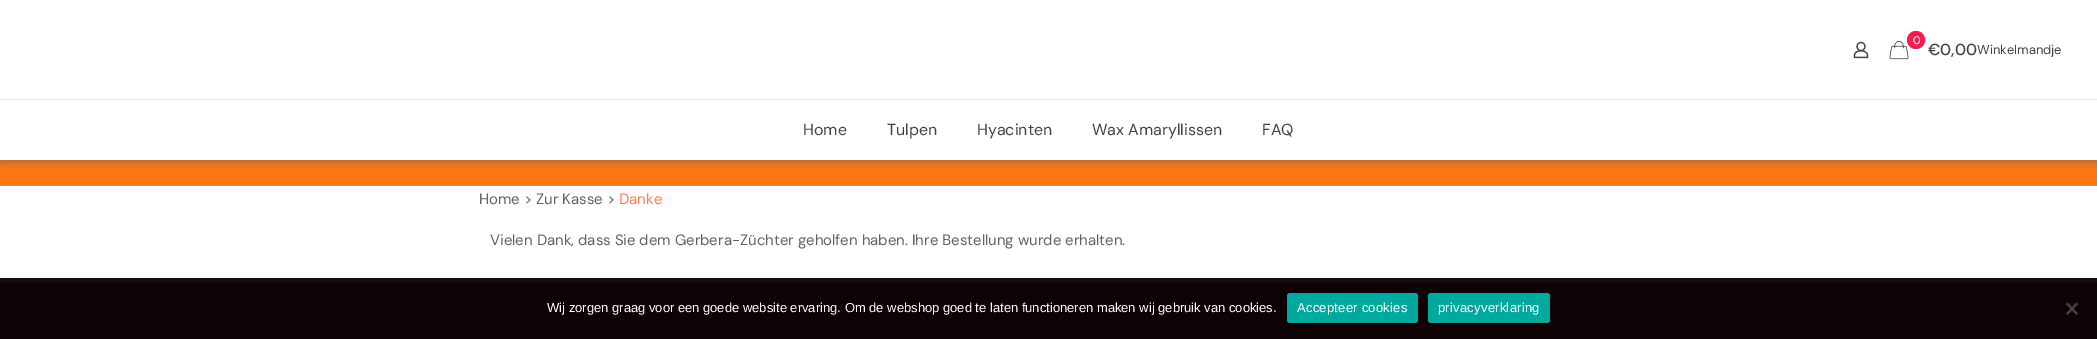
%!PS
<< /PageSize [2097 339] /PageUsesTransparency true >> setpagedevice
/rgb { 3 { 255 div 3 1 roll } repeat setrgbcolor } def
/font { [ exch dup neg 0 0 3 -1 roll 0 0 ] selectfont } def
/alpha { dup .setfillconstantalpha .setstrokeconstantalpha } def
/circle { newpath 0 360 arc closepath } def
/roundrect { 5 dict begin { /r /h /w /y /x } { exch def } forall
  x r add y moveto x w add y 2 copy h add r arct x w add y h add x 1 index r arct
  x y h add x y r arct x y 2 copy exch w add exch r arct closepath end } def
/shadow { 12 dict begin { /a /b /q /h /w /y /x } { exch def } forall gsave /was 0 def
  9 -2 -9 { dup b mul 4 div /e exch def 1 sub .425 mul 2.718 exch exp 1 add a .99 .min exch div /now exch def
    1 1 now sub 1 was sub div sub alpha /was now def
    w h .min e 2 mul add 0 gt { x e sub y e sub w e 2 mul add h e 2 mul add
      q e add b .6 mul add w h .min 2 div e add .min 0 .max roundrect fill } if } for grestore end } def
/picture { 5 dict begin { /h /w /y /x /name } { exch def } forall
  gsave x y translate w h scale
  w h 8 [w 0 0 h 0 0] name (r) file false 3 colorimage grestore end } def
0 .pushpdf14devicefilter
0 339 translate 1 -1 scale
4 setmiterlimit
255 255 255 rgb
0 0 2097 339 rectfill
15 15 15 rgb
0 278 2097 5 rectfill
255 119 20 rgb
0 160 2097 26 rectfill
102 102 102 rgb
0 0 2097 160 0 5 1 shadow
255 255 255 rgb
0 0 2097 160 rectfill
230 230 230 rgb
0 99 2097 1 rectfill
(img/1.rgb) 1853 41 16 18 picture
(img/2.rgb) 1889 40 20 20 picture
242 28 81 rgb
1916 40 9 circle fill
15 2 5 rgb
0 283 2097 56 rectfill
0 169 157 rgb
1287 293 131 30 3 roundrect fill
1428 293 122 30 3 roundrect fill
71 65 66 rgb
2076.5 302.5 moveto 2078 304 lineto 2067.5 315 lineto 2066 313.5 lineto closepath fill
2066 304 moveto 2067.5 302.5 lineto 2078 313.5 lineto 2076.5 315 lineto closepath fill
/DMSans-Regular 11 font
255 255 255 rgb
1913 44 moveto (0) show
/DMSans-Medium 16 font
68 68 68 rgb
1928 55 moveto (€0,00) show
/DMSans-Regular 13 font
1977 54 moveto (Winkelmandje) show
/DMSans-Regular 16 font
[
  [(Home) 803 135]
  [(Tulpen) 887 135]
  [(Hyacinten) 977 135]
  [(Wax Amaryllissen) 1092 135]
  [(FAQ) 1262 135]
] { aload pop moveto show } forall
/DMSans-Regular 15 font
98 98 98 rgb
479 204 moveto (Home > Zur Kasse >) show
255 123 85 rgb
619 204 moveto (Danke) show
98 98 98 rgb
490 245 moveto (Vielen Dank, dass Sie dem Gerbera-Züchter geholfen haben. Ihre Bestellung wurde erhalten.) show
/LiberationSans-Regular 13 font
255 255 255 rgb
547 312 moveto (Wij zorgen graag voor een goede website ervaring. Om de webshop goed te laten functioneren maken wij gebruik van cookies.) show
1297 312 moveto 0.25 0 (Accepteer cookies) ashow
1438 312 moveto 0.25 0 (privacyverklaring) ashow
.poppdf14devicefilter showpage
